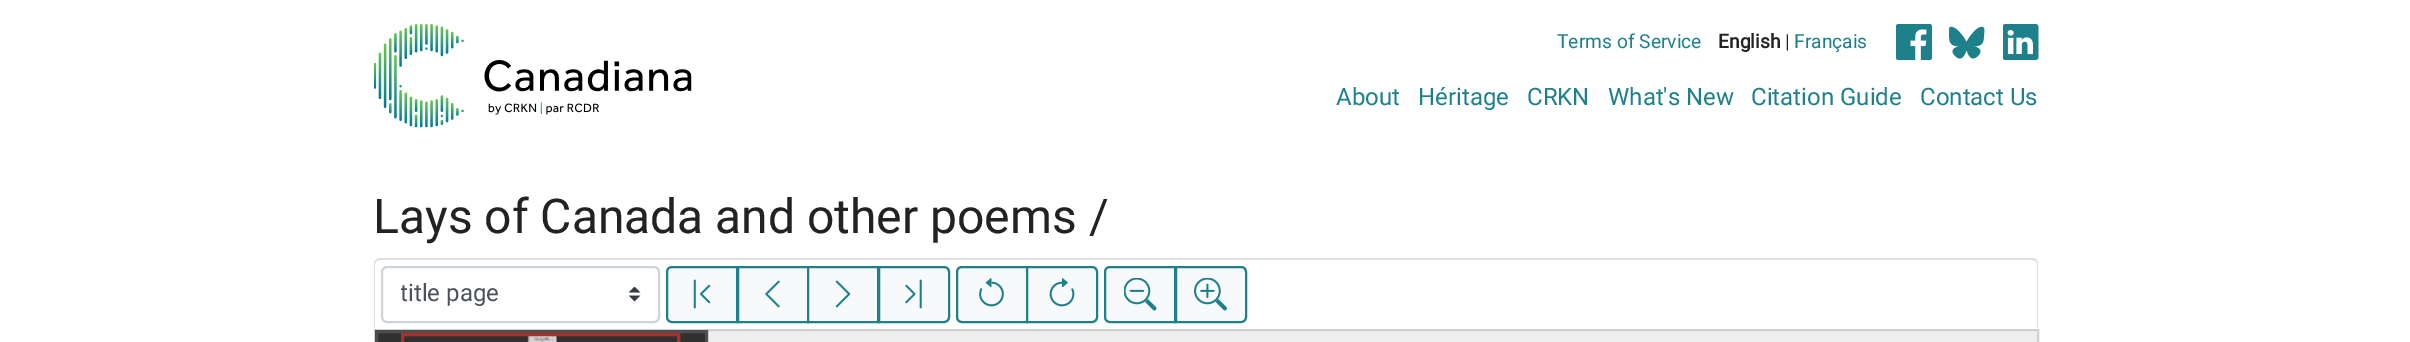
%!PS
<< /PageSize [2410 342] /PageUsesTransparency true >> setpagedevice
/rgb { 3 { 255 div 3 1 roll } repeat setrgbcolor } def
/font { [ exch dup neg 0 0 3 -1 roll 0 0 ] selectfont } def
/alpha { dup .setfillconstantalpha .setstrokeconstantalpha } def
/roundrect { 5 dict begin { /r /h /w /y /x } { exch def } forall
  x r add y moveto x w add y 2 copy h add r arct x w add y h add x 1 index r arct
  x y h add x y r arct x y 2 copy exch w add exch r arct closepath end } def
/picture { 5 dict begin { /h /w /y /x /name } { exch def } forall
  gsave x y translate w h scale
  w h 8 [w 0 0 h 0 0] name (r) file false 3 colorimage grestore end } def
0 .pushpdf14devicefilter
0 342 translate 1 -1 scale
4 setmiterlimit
255 255 255 rgb
0 0 2410 342 rectfill
(img/1.rgb) 374 24 318 104 picture
(img/2.rgb) 1896 24 36 36 picture
(img/3.rgb) 1949 26 36 33 picture
(img/4.rgb) 2003 24 36 36 picture
223 223 223 rgb
380 258 moveto 2032 258 lineto 2036 258 2038 261 2038 264 curveto 2038 328 lineto 374 328 lineto 374 264 lineto 374 261 376 258 380 258 curveto closepath 380 260 moveto 2032 260 lineto 2035 260 2037 262 2037 264 curveto 2037 328 lineto 375 328 lineto 375 264 lineto 375 262 377 260 380 260 curveto closepath eofill
(img/5.rgb) 629 287 12 15 picture
206 212 218 rgb
2 setlinewidth
382 267 277 55 5 roundrect stroke
248 249 250 rgb
672 267 moveto 737 267 lineto 737 322 lineto 672 322 lineto 669 322 667 320 667 317 curveto 667 272 lineto 667 269 669 267 672 267 curveto closepath gsave fill grestore
29 128 139 rgb
stroke
(img/6.rgb) 693 279 18 30 picture
248 249 250 rgb
738 267 moveto 808 267 lineto 808 322 lineto 738 322 lineto closepath gsave fill grestore
29 128 139 rgb
stroke
(img/7.rgb) 765 280 15 28 picture
248 249 250 rgb
808 267 moveto 878 267 lineto 878 322 lineto 808 322 lineto closepath gsave fill grestore
29 128 139 rgb
stroke
(img/8.rgb) 835 280 16 28 picture
248 249 250 rgb
879 267 moveto 944 267 lineto 947 267 949 269 949 272 curveto 949 317 lineto 949 320 947 322 944 322 curveto 879 322 lineto closepath gsave fill grestore
29 128 139 rgb
stroke
(img/9.rgb) 905 279 17 30 picture
248 249 250 rgb
962 267 moveto 1027 267 lineto 1027 322 lineto 962 322 lineto 959 322 957 320 957 317 curveto 957 272 lineto 957 269 959 267 962 267 curveto closepath gsave fill grestore
29 128 139 rgb
stroke
(img/10.rgb) 979 278 25 29 picture
248 249 250 rgb
1027 267 moveto 1092 267 lineto 1095 267 1097 269 1097 272 curveto 1097 317 lineto 1097 320 1095 322 1092 322 curveto 1027 322 lineto closepath gsave fill grestore
29 128 139 rgb
stroke
(img/11.rgb) 1049 278 26 29 picture
248 249 250 rgb
1110 267 moveto 1175 267 lineto 1175 322 lineto 1110 322 lineto 1107 322 1105 320 1105 317 curveto 1105 272 lineto 1105 269 1107 267 1110 267 curveto closepath gsave fill grestore
29 128 139 rgb
stroke
(img/12.rgb) 1124 278 33 33 picture
248 249 250 rgb
1176 267 moveto 1241 267 lineto 1244 267 1246 269 1246 272 curveto 1246 317 lineto 1246 320 1244 322 1241 322 curveto 1176 322 lineto closepath gsave fill grestore
29 128 139 rgb
stroke
(img/13.rgb) 1194 278 33 33 picture
238 238 238 rgb
375 330 moveto 2038 330 lineto 2038 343 lineto 375 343 lineto closepath gsave fill grestore
208 208 208 rgb
stroke
0.8 alpha
0 0 0 rgb
375 330 333 12 rectfill
85 85 85 rgb
3 setlinewidth
376.5 331.5 330 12 rectstroke
1 alpha
(img/14.rgb) 527 336 30 6 picture
170 48 48 rgb
402.5 334.5 276 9 rectstroke
/Roboto-Regular 19.25 font
29 128 139 rgb
1557 48 moveto (Terms of Service) show
/Roboto-Bold 19.25 font
34 34 34 rgb
1718 48 moveto (English) show
/Roboto-Regular 19.25 font
1785 48 moveto (|) show
29 128 139 rgb
1794 48 moveto (Français) show
/Roboto-Regular 24 font
[
  [(About) 1336 105]
  [(Héritage) 1418 105]
  [(CRKN) 1527 105]
  [(What's New) 1608 105]
  [(Citation Guide) 1751 105]
  [(Contact Us) 1920 105]
] { aload pop moveto show } forall
/Roboto-Regular 48 font
34 34 34 rgb
373 233 moveto (Lays of Canada and other poems /) show
gsave
401 276 216 36 rectclip
/Roboto-Regular 24 font
73 80 87 rgb
400 301 moveto (title page) show
grestore
.poppdf14devicefilter showpage
